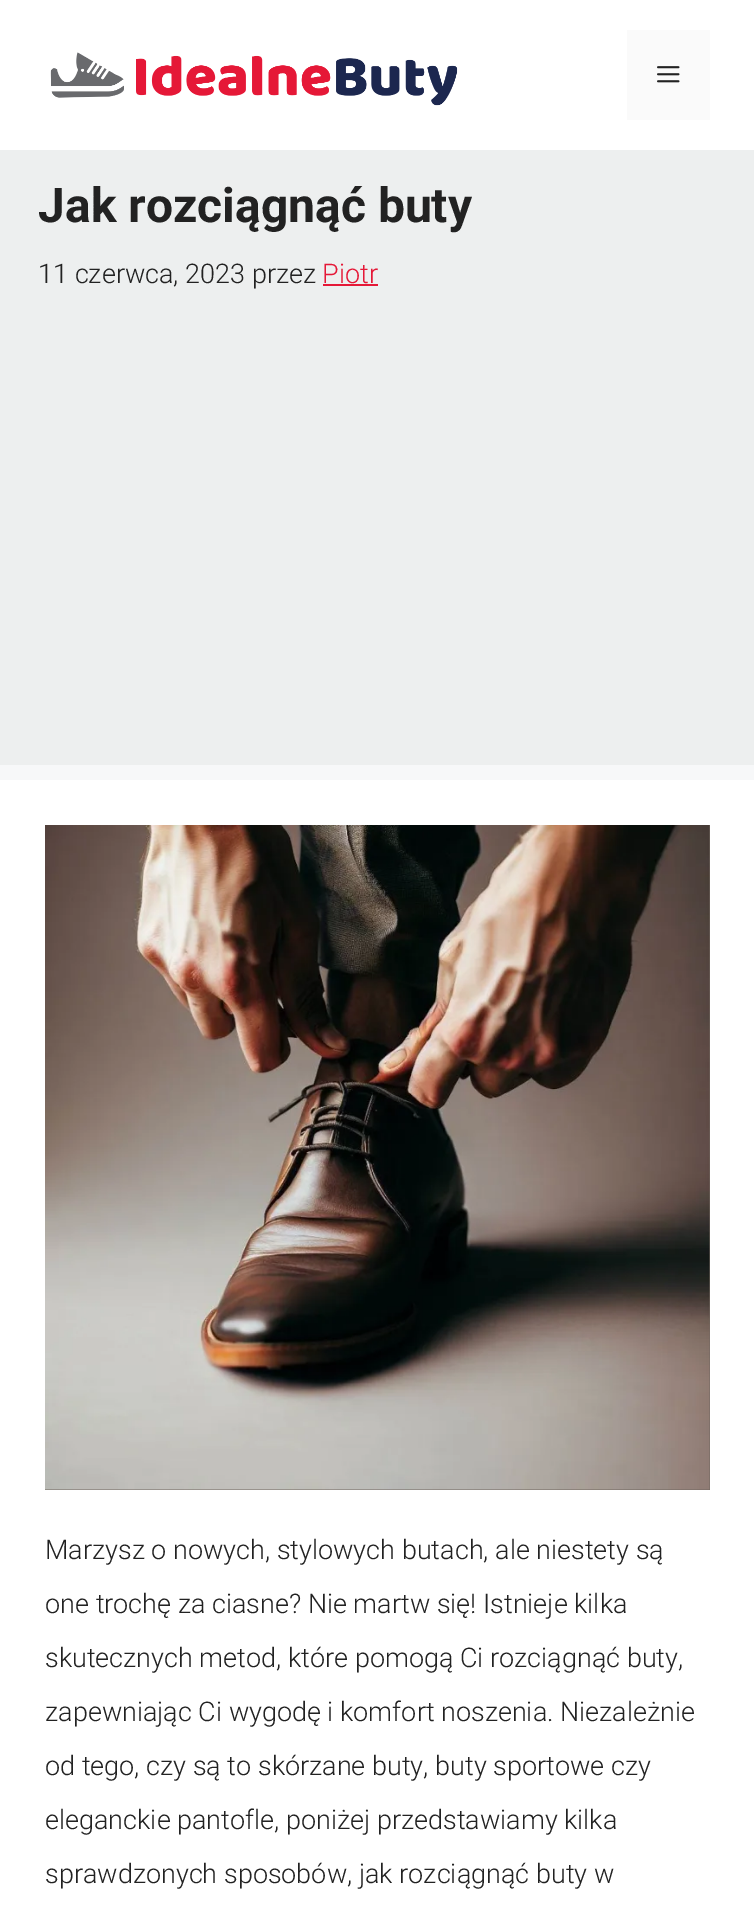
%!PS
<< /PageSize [754 1905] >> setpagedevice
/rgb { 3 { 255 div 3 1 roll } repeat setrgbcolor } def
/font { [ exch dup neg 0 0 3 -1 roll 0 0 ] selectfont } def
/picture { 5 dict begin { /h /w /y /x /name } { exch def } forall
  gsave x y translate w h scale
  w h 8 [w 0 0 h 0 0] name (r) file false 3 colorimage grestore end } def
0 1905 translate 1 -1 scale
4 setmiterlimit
247 248 249 rgb
0 0 754 1905 rectfill
255 255 255 rgb
0 0 754 150 rectfill
(img/1.rgb) 50 52 408 54 picture
250 250 250 rgb
627 30 83 90 rectfill
(img/2.rgb) 657 66 23 17 picture
[
  [0 150 754 615 237 239 239]
  [323 284 55 2 229 24 55]
  [0 780 754 1125 255 255 255]
  [45 825 665 665 113 102 95]
] { aload pop rgb rectfill } forall
(img/3.rgb) 45 825 665 665 picture
/Roboto-Bold 48 font
34 34 34 rgb
38 222 moveto (Jak rozciągnąć buty) show
/Roboto-Light 27 font
38 283 moveto (11 czerwca, 2023 przez) show
229 24 55 rgb
322 283 moveto (Piotr) show
34 34 34 rgb
[
  [(Marzysz o nowych, stylowych butach, ale niestety są) 45 1559]
  [(one trochę za ciasne? Nie martw się! Istnieje kilka) 45 1613]
  [(skutecznych metod, które pomogą Ci rozciągnąć buty,) 45 1667]
  [(zapewniając Ci wygodę i komfort noszenia. Niezależnie) 45 1721]
  [(od tego, czy są to skórzane buty, buty sportowe czy) 45 1775]
  [(eleganckie pantofle, poniżej przedstawiamy kilka) 45 1829]
  [(sprawdzonych sposobów, jak rozciągnąć buty w) 45 1883]
] { aload pop moveto show } forall
showpage
